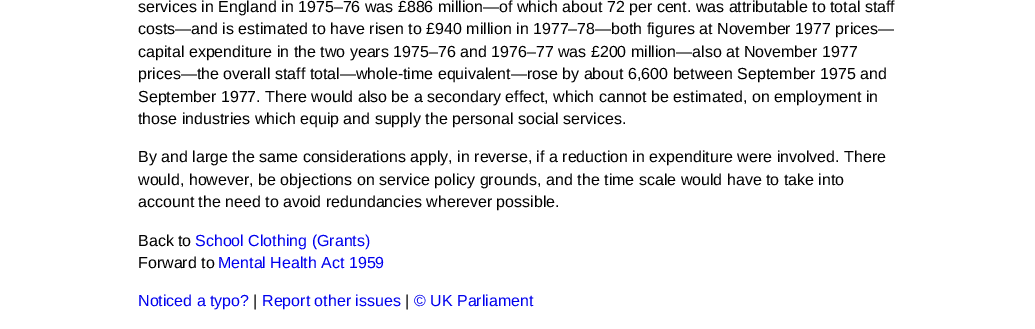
%!PS
<< /PageSize [1035 329] >> setpagedevice
/rgb { 3 { 255 div 3 1 roll } repeat setrgbcolor } def
/font { [ exch dup neg 0 0 3 -1 roll 0 0 ] selectfont } def
0 329 translate 1 -1 scale
4 setmiterlimit
255 255 255 rgb
0 0 1035 329 rectfill
/LiberationSans-Regular 16 font
0 0 0 rgb
[
  [(services in England in 1975–76 was £886 million—of which about 72 per cent. was attributable to total staff) 138 12]
  [(costs—and is estimated to have risen to £940 million in 1977–78—both figures at November 1977 prices—) 138 34]
  [(capital expenditure in the two years 1975–76 and 1976–77 was £200 million—also at November 1977) 138 57]
  [(prices—the overall staff total—whole-time equivalent—rose by about 6,600 between September 1975 and) 138 79]
  [(September 1977. There would also be a secondary effect, which cannot be estimated, on employment in) 138 102]
  [(those industries which equip and supply the personal social services.) 138 124]
  [(By and large the same considerations apply, in reverse, if a reduction in expenditure were involved. There) 138 162]
  [(would, however, be objections on service policy grounds, and the time scale would have to take into) 138 185]
  [(account the need to avoid redundancies wherever possible.) 138 207]
  [(Back to) 138 246]
] { aload pop moveto show } forall
0 0 238 rgb
195 246 moveto (School Clothing \(Grants\)) show
0 0 0 rgb
138 268 moveto (Forward to) show
0 0 238 rgb
218 268 moveto (Mental Health Act 1959) show
138 306 moveto (Noticed a typo?) show
0 0 0 rgb
253 306 moveto (|) show
0 0 238 rgb
262 306 moveto (Report other issues) show
0 0 0 rgb
405 306 moveto (|) show
0 0 238 rgb
414 306 moveto (© UK Parliament) show
showpage
